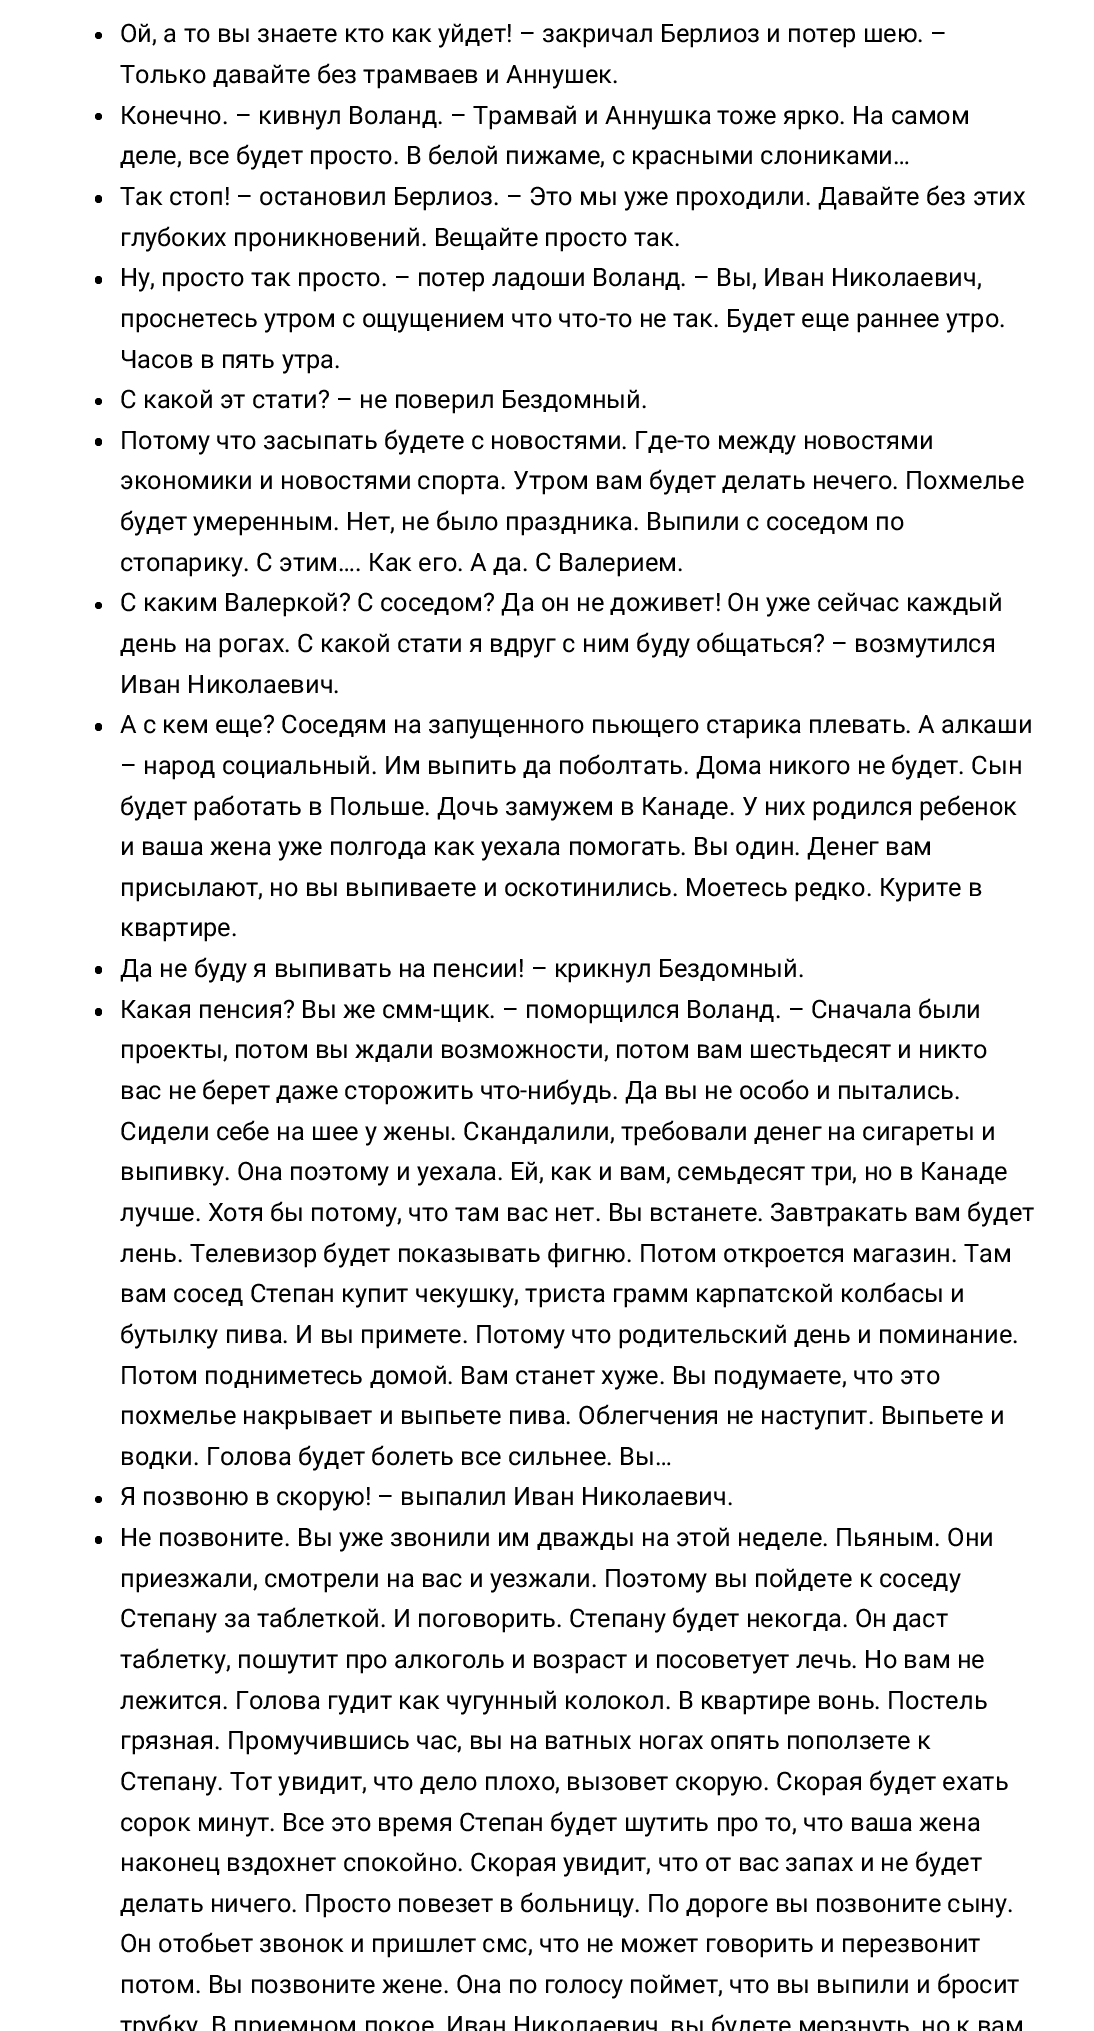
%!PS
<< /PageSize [1094 2031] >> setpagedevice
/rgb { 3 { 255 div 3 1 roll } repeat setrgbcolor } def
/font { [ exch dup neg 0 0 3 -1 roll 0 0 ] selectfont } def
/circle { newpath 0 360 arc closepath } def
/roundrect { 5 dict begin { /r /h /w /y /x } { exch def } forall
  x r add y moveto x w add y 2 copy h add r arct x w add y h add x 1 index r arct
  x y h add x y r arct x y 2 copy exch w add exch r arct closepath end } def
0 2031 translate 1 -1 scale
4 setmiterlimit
255 255 255 rgb
0 0 1094 2031 rectfill
0 0 0 rgb
98.5 35.5 3.5 circle fill
98.5 116.5 3.5 circle fill
95 195 7 8 3.5 roundrect fill
95 276 7 8 3.5 roundrect fill
98.5 401.5 3.5 circle fill
95 438 7 8 3.5 roundrect fill
98.5 605.5 3.5 circle fill
95 723 7 8 3.5 roundrect fill
95 966 7 8 3.5 roundrect fill
95 1008 7 8 3.5 roundrect fill
98.5 1499.5 3.5 circle fill
95 1536 7 8 3.5 roundrect fill
/Roboto-Regular 25.4 font
[
  [(Ой, а то вы знаете кто как уйдет! – закричал Берлиоз и потер шею. –) 120 42]
  [(Только давайте без трамваев и Аннушек.) 120 83]
  [(Конечно. – кивнул Воланд. – Трамвай и Аннушка) 120 124]
  [(тоже ярко. На самом) 717 124]
  [(деле, все будет просто. В белой пижаме, с красными слониками…) 120 164]
  [(Так стоп! – остановил Берлиоз. – Это мы уже проходили. Давайте без этих) 120 205]
  [(глубоких проникновений. Вещайте просто так.) 120 246]
  [(Ну, просто так просто. – потер ладоши Воланд. – Вы, Иван Николаевич,) 120 286]
  [(проснетесь утром с ощущением что что-то не так. Будет еще раннее утро.) 120 327]
  [(Часов в пять утра.) 120 368]
  [(С какой эт стати? – не поверил Бездомный.) 120 408]
  [(Потому что засыпать будете с новостями. Где-то между новостями) 120 449]
  [(экономики и новостями спорта. Утром вам будет делать нечего. Похмелье) 120 489]
  [(будет умеренным. Нет, не было праздника. Выпили с соседом по) 120 530]
  [(стопарику. С этим…. Как его. А да. С Валерием.) 120 571]
  [(С каким Валеркой? С соседом? Да он не доживет! Он уже сейчас каждый) 120 611]
  [(день на рогах. С какой стати я вдруг с ним буду общаться? – возмутился) 120 652]
  [(Иван Николаевич.) 120 693]
  [(А с кем еще? Соседям на запущенного пьющего старика плевать. А алкаши) 120 733]
  [(– народ социальный. Им выпить да поболтать. Дома никого не будет. Сын) 120 774]
  [(будет работать в Польше. Дочь замужем в Канаде. У них родился ребенок) 120 815]
  [(и ваша жена уже полгода как уехала помогать. Вы один. Денег вам) 120 855]
  [(присылают, но вы выпиваете и оскотинились. Моетесь редко. Курите в) 120 896]
  [(квартире.) 120 936]
  [(Да не буду я выпивать на пенсии! – крикнул Бездомный.) 120 977]
  [(Какая пенсия? Вы же смм-щик. – поморщился Воланд. – Сначала были) 120 1018]
  [(проекты, потом вы ждали возможности, потом вам шестьдесят и никто) 120 1058]
  [(вас не берет даже сторожить что-нибудь. Да вы не особо и пытались.) 120 1099]
  [(Сидели себе на шее у жены. Скандалили, требовали денег на сигареты и) 120 1140]
  [(выпивку. Она поэтому и уехала. Ей, как и вам, семьдесят три, но в Канаде) 120 1180]
  [(лучше. Хотя бы потому, что там вас нет. Вы встанете. Завтракать вам будет) 120 1221]
  [(лень. Телевизор будет показывать фигню. Потом откроется магазин. Там) 120 1262]
  [(вам сосед Степан купит чекушку, триста грамм карпатской колбасы и) 120 1302]
  [(бутылку пива. И вы примете. Потому что родительский день и поминание.) 120 1343]
  [(Потом подниметесь домой. Вам станет хуже. Вы подумаете, что это) 120 1384]
  [(похмелье накрывает и выпьете пива. Облегчения не наступит. Выпьете и) 120 1424]
  [(водки. Голова будет болеть все сильнее. Вы…) 120 1465]
  [(Я позвоню в скорую! – выпалил Иван Николаевич.) 120 1505]
  [(Не позвоните. Вы уже звонили им дважды на этой неделе. Пьяным. Они) 120 1546]
  [(приезжали, смотрели на вас и уезжали. Поэтому вы пойдете к соседу) 120 1587]
  [(Степану за таблеткой. И поговорить. Степану будет некогда. Он даст) 120 1627]
  [(таблетку, пошутит про алкоголь и возраст и посоветует лечь. Но вам не) 120 1668]
  [(лежится. Голова гудит как чугунный колокол. В квартире вонь. Постель) 120 1709]
  [(грязная. Промучившись час, вы на ватных ногах опять поползете к) 120 1749]
  [(Степану. Тот увидит, что дело плохо, вызовет скорую. Скорая будет ехать) 120 1790]
  [(сорок минут. Все это время Степан будет шутить про то, что ваша жена) 120 1831]
  [(наконец вздохнет спокойно. Скорая увидит, что от вас запах и не будет) 120 1871]
  [(делать ничего. Просто повезет в больницу. По дороге вы позвоните сыну.) 120 1912]
  [(Он отобьет звонок и пришлет смс, что не может говорить и перезвонит) 120 1952]
  [(потом. Вы позвоните жене. Она по голосу поймет, что вы выпили и бросит) 120 1993]
  [(трубку. В приемном покое, Иван Николаевич, вы будете мерзнуть, но к вам) 120 2034]
] { aload pop moveto show } forall
showpage
